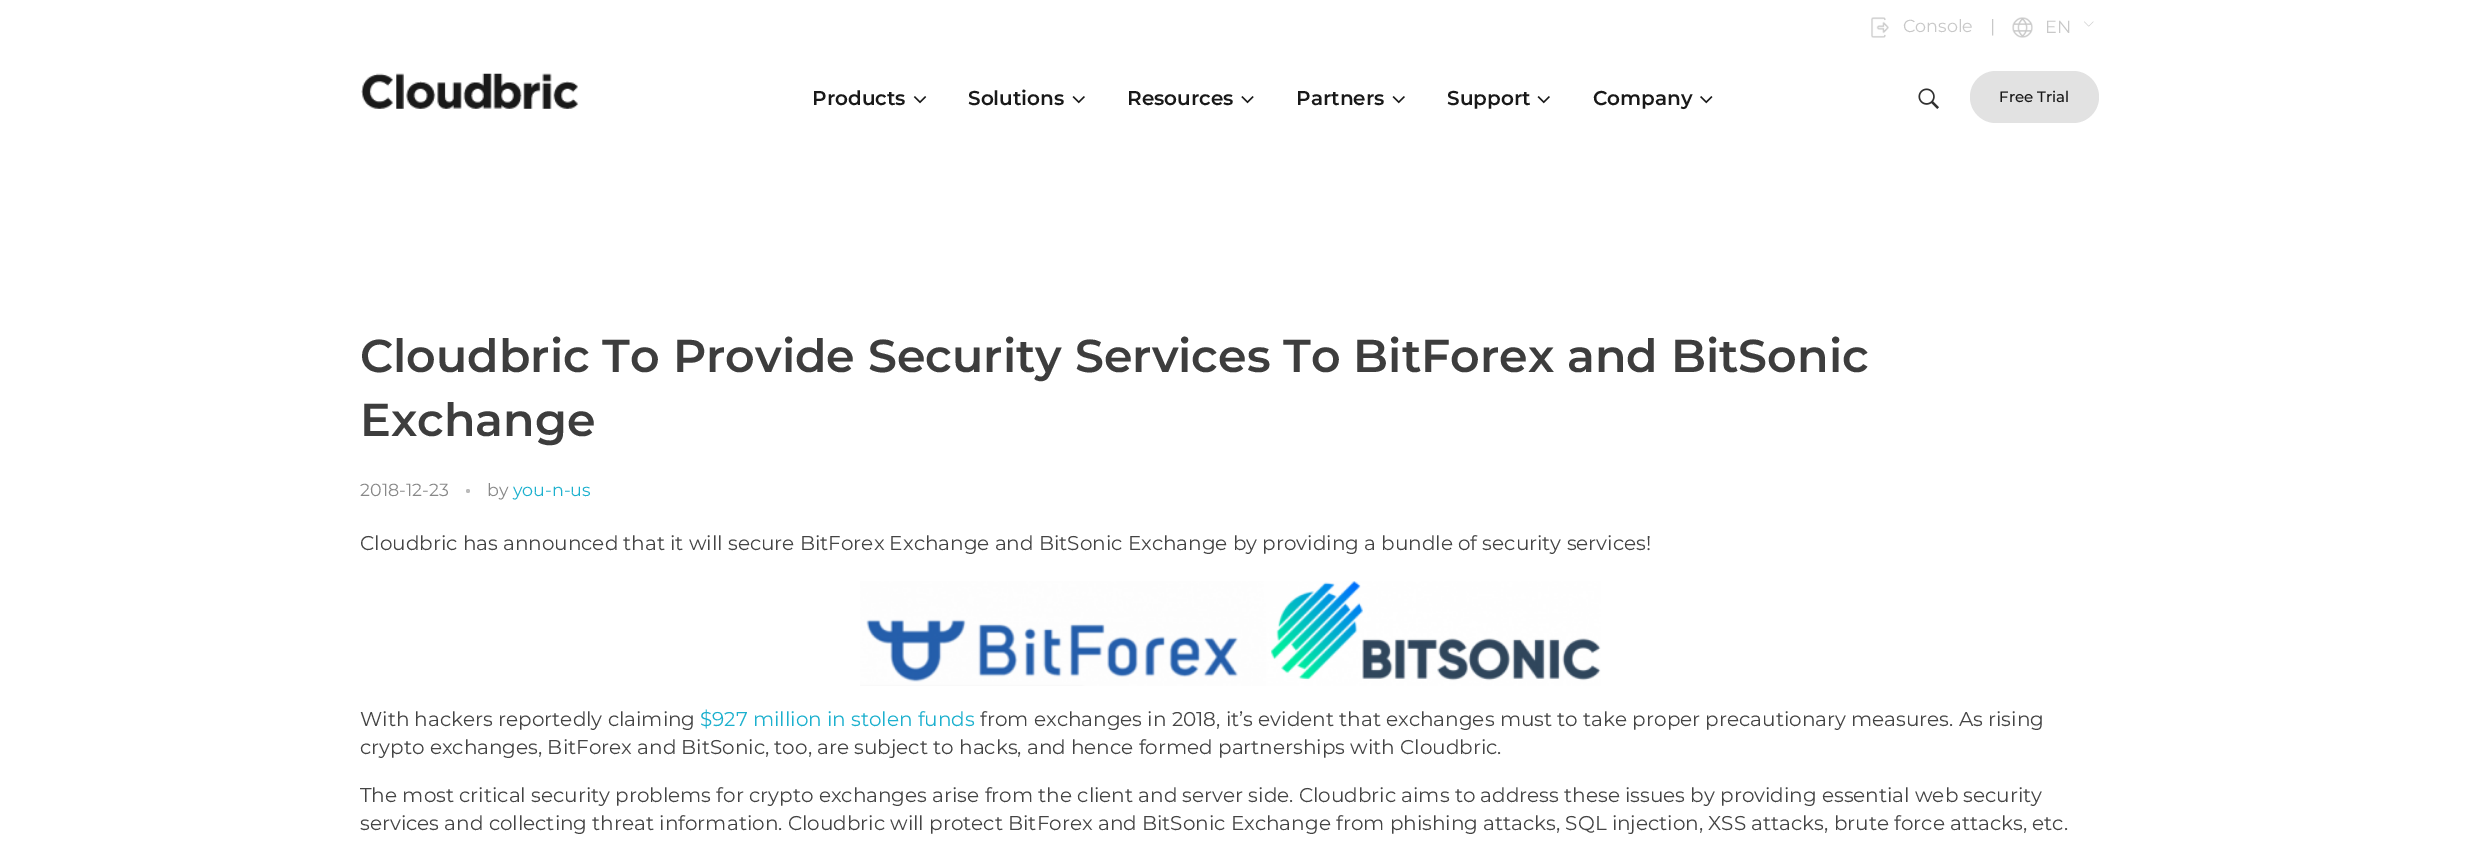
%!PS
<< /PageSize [2470 864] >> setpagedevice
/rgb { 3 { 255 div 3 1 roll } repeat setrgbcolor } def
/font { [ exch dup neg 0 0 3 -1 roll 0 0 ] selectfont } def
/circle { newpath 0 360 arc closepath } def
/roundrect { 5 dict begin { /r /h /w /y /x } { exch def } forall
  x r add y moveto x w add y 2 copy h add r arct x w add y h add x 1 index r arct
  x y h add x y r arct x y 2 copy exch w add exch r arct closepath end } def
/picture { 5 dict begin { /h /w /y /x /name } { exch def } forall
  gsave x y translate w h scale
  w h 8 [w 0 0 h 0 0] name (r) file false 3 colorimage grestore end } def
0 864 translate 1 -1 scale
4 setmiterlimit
255 255 255 rgb
0 0 2470 864 rectfill
(img/1.rgb) 1871 17 18 21 picture
(img/2.rgb) 2012 17 21 21 picture
(img/3.rgb) 2084 21 10 6 picture
(img/4.rgb) 361 73 218 36 picture
(img/5.rgb) 913 96 14 8 picture
(img/6.rgb) 1072 96 13 8 picture
(img/7.rgb) 1241 96 13 8 picture
(img/6.rgb) 1392 96 13 8 picture
(img/6.rgb) 1537 96 13 8 picture
(img/8.rgb) 1700 96 13 8 picture
(img/9.rgb) 1918 88 21 21 picture
226 226 226 rgb
1970 71 129 52 26 roundrect fill
187 187 187 rgb
468 491 2 circle fill
(img/10.rgb) 860 581 741 105 picture
/Montserrat-Regular 17.5 font
200 200 200 rgb
[
  [(Console) 1903 32]
  [(|) 1990 32]
  [(EN) 2045 33]
] { aload pop moveto show } forall
/Montserrat-SemiBold 20 font
25 25 25 rgb
[
  [(Products) 812 105]
  [(Solutions) 968 105]
  [(Resources) 1127 105]
  [(Partners) 1296 105]
  [(Support) 1447 105]
  [(Company) 1593 105]
] { aload pop moveto show } forall
/Montserrat-Medium 15 font
1999 102 moveto (Free Trial) show
/Montserrat-SemiBold 46 font
61 61 61 rgb
360 372 moveto (Cloudbric To Provide Security Services To BitForex and BitSonic) show
360 436 moveto (Exchange) show
/Montserrat-Regular 17.5 font
136 136 136 rgb
360 496 moveto (2018-12-23) show
487 496 moveto (by) show
27 176 206 rgb
513 496 moveto (you-n-us) show
/Montserrat-Regular 20 font
68 68 68 rgb
360 550 moveto (Cloudbric has announced that it will secure BitForex Exchange and BitSonic Exchange by providing a bundle of security services!) show
360 726 moveto (With hackers reportedly claiming) show
27 176 206 rgb
700 726 moveto ($927 million in stolen funds) show
68 68 68 rgb
[
  [(from exchanges in 2018, it’s evident that exchanges must to take proper precautionary measures. As rising) 980 726]
  [(crypto exchanges, BitForex and BitSonic, too, are subject to hacks, and hence formed partnerships with Cloudbric.) 360 754]
  [(The most critical security problems for crypto exchanges arise from the client and server side. Cloudbric aims to address these issues by providing essential web security) 360 802]
  [(services and collecting threat information. Cloudbric will protect BitForex and BitSonic Exchange from phishing attacks, SQL injection, XSS attacks, brute force attacks, etc.) 360 830]
] { aload pop moveto show } forall
showpage
